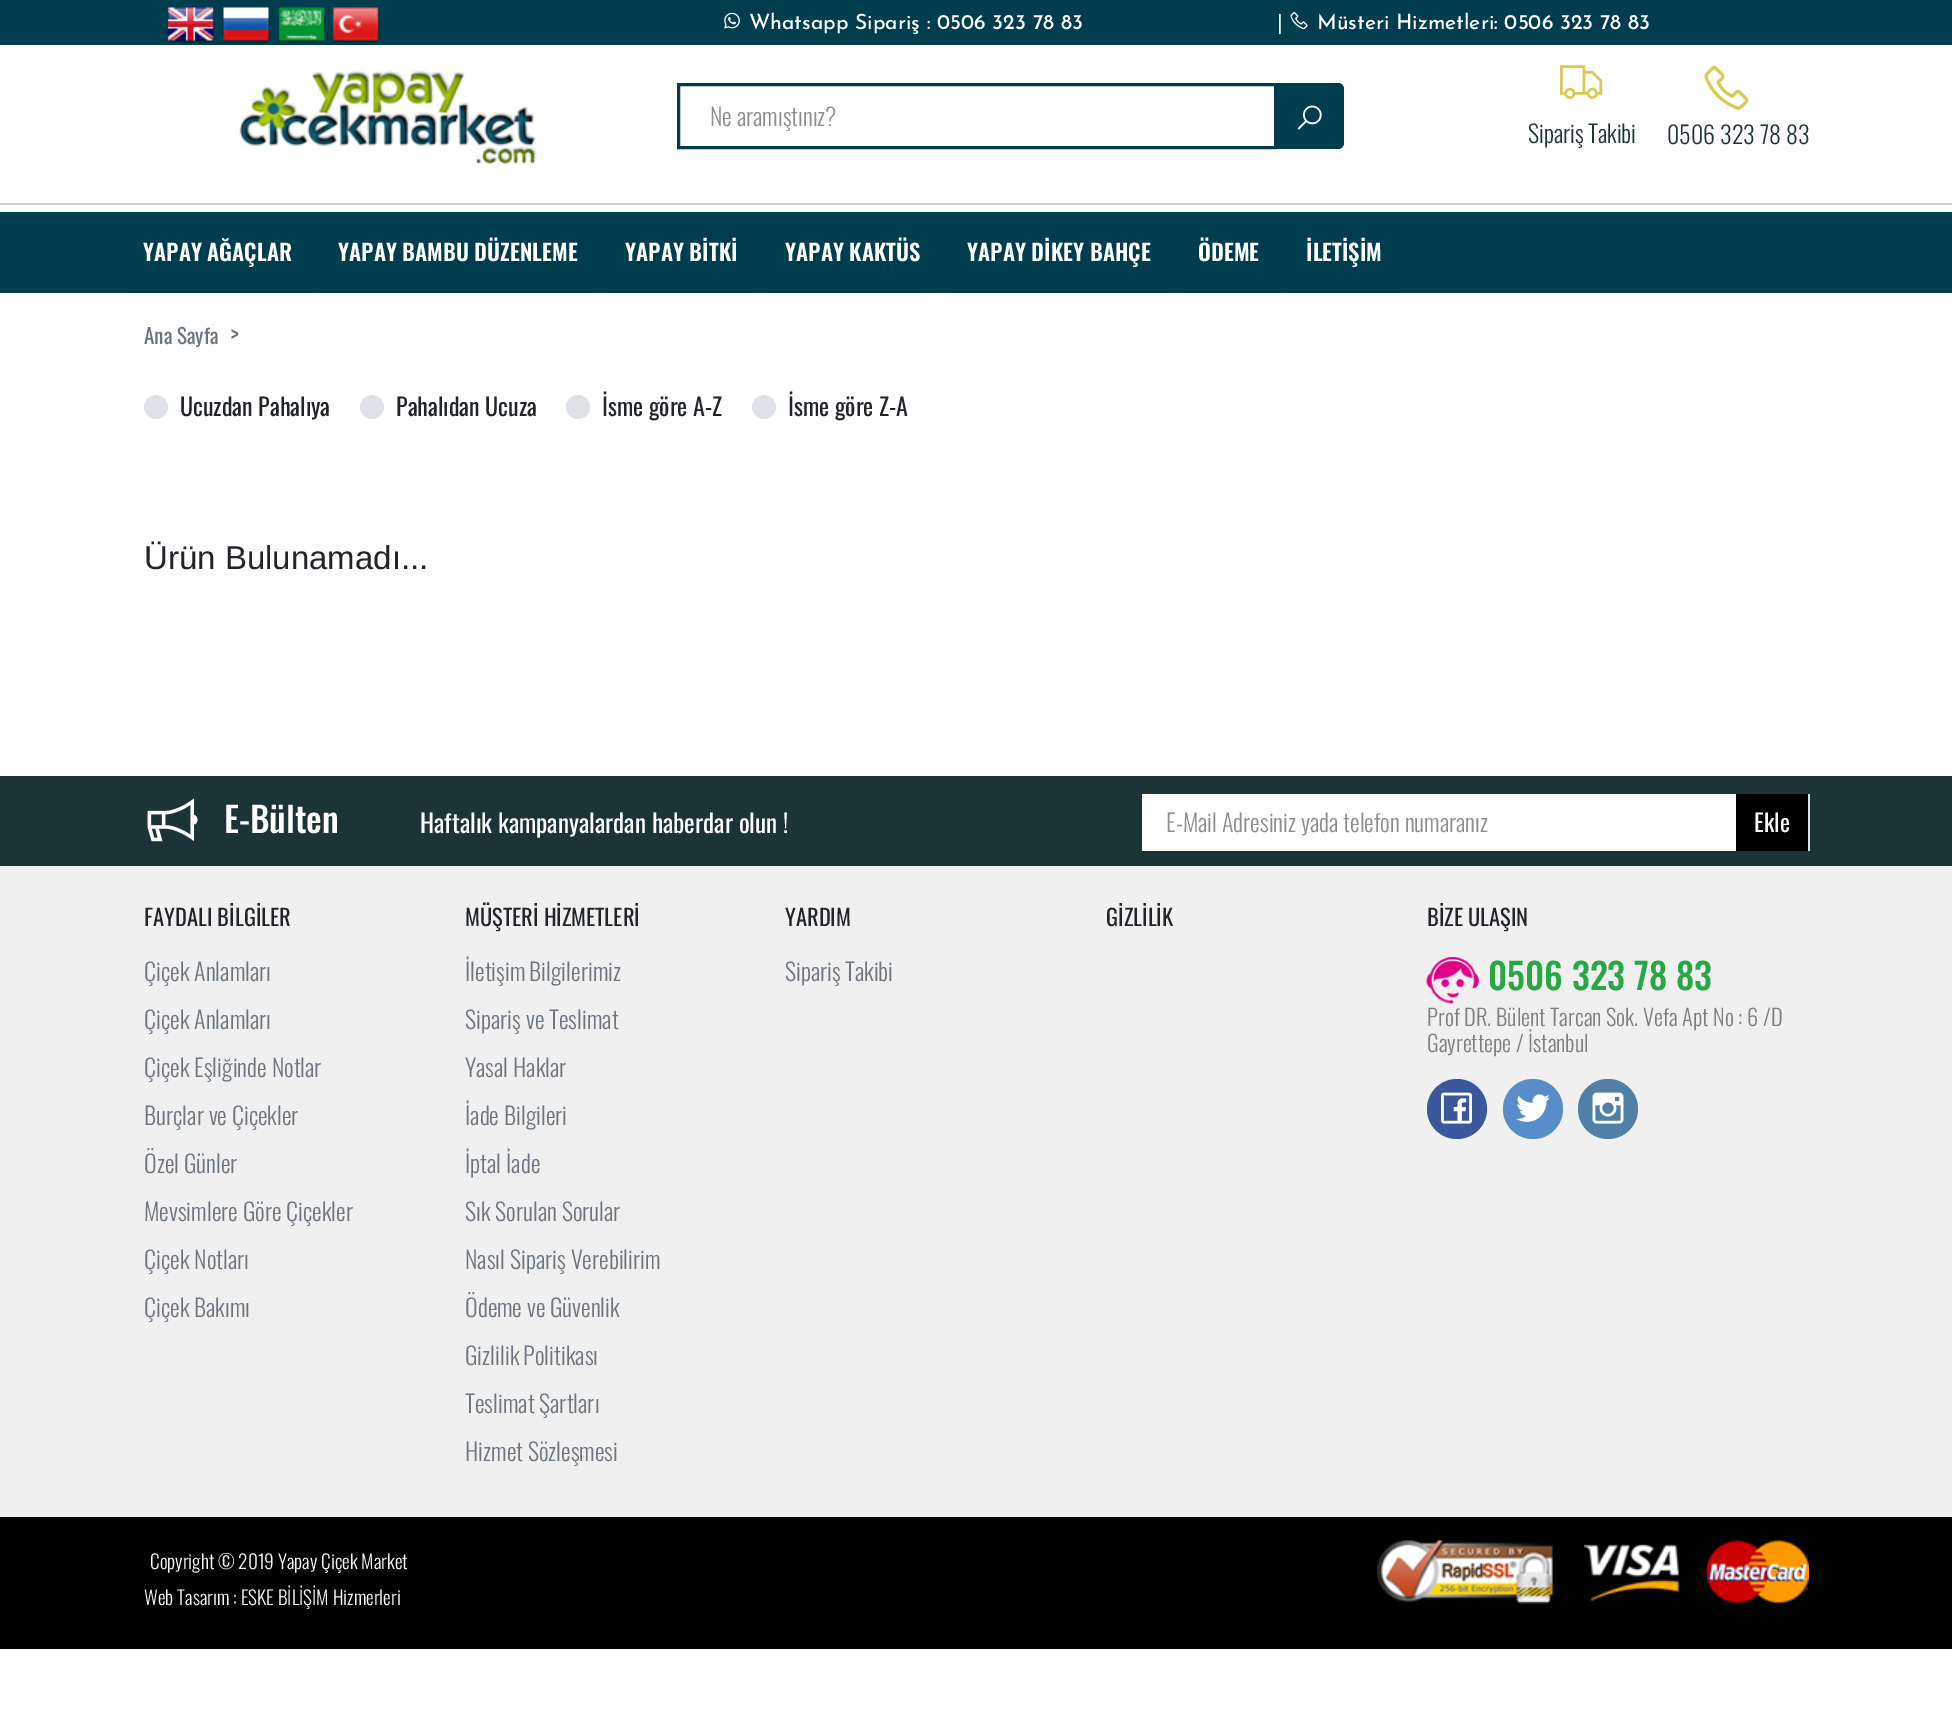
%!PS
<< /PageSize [1952 1713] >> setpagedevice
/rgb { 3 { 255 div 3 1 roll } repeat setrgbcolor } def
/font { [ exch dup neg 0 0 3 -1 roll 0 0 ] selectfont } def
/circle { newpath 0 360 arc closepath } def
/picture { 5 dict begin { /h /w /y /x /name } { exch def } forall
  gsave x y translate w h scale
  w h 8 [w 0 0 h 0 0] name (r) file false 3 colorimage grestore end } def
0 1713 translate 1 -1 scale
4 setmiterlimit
255 255 255 rgb
0 0 1952 1713 rectfill
0 62 79 rgb
0 0 1952 45 rectfill
(img/1.rgb) 166 7 49 37 picture
(img/2.rgb) 222 7 48 37 picture
(img/3.rgb) 277 7 49 37 picture
(img/4.rgb) 331 7 49 37 picture
(img/5.rgb) 724 12 16 17 picture
(img/6.rgb) 1290 12 18 18 picture
(img/7.rgb) 239 70 298 95 picture
3 setlinewidth
678.5 84.5 597 63 rectstroke
1275 83 moveto 1338 83 lineto 1341.5 83 1344 85.5 1344 89 curveto 1344 143 lineto 1344 146.5 1341.5 149 1338 149 curveto 1275 149 lineto closepath fill
(img/8.rgb) 1297 105 25 25 picture
(img/9.rgb) 1560 65 43 34 picture
(img/10.rgb) 1704 65 45 45 picture
[
  [0 203 1952 2 204 204 204]
  [0 212 1952 81 0 62 79]
  [122 291 190 2 0 56 71]
  [318 291 281 2 0 56 71]
  [605 291 154 2 0 56 71]
  [764 291 178 2 0 56 71]
  [947 291 225 2 0 56 71]
  [1178 291 103 2 0 56 71]
  [1286 291 118 2 0 56 71]
] { aload pop rgb rectfill } forall
222 226 230 rgb
156 407 12 circle fill
372 407 12 circle fill
578 407 12 circle fill
764 407 12 circle fill
28 52 56 rgb
0 776 1952 90 rectfill
(img/11.rgb) 147 798 51 44 picture
[
  [1142 794 594 57 255 255 255]
  [1736 794 72 57 0 0 0]
  [1808 794 2 57 222 226 230]
  [0 866 1952 651 240 240 240]
] { aload pop rgb rectfill } forall
(img/12.rgb) 1426 957 53 47 picture
58 88 155 rgb
1457 1109 30 circle fill
(img/13.rgb) 1441 1092 31 32 picture
89 141 202 rgb
1533 1109 30 circle fill
(img/14.rgb) 1516 1094 34 28 picture
81 127 166 rgb
1608 1109 30 circle fill
(img/15.rgb) 1592 1092 32 32 picture
1 1 2 rgb
0 1517 1952 132 rectfill
(img/16.rgb) 1377 1540 177 64 picture
(img/17.rgb) 1584 1544 95 57 picture
(img/18.rgb) 1705 1540 104 64 picture
/JosefinSans-Medium 21 font
255 255 255 rgb
[
  [(Whatsapp Sipariş : 0506 323 78 83) 749 29]
  [(|) 1277 29]
  [(Müsteri Hizmetleri: 0506 323 78 83) 1317 29]
] { aload pop moveto show } forall
/Oswald-Light 24 font
141 141 141 rgb
710 126 moveto (Ne aramıştınız?) show
28 52 56 rgb
1528 143 moveto -1 0 32 (Sipariş Takibi) widthshow
1667 144 moveto (0506 323 78 83) show
/Oswald-SemiBold 22.5 font
255 255 255 rgb
[
  [(YAPAY AĞAÇLAR) 143 261]
  [(YAPAY BAMBU DÜZENLEME) 338 261]
  [(YAPAY BİTKİ) 625 261]
  [(YAPAY KAKTÜS) 785 261]
  [(YAPAY DİKEY BAHÇE) 967 261]
  [(ÖDEME) 1198 261]
  [(İLETİŞİM) 1306 261]
] { aload pop moveto show } forall
/Oswald-Regular 21 font
108 117 125 rgb
144 344 moveto (Ana Sayfa) show
/Oswald-Regular 24 font
230 344 moveto (>) show
33 37 41 rgb
[
  [(Ucuzdan Pahalıya) 180 416]
  [(Pahalıdan Ucuza) 396 416]
  [(İsme göre A-Z) 602 416]
  [(İsme göre Z-A) 788 416]
] { aload pop moveto show } forall
/LiberationSans-Regular 33 font
144 569 moveto (Ürün Bulunamadı...) show
/Oswald-Medium 35 font
255 255 255 rgb
224 833 moveto (E-Bülten) show
/Oswald-Regular 25.25 font
420 833 moveto (Haftalık kampanyalardan haberdar olun !) show
/Oswald-Light 24 font
141 141 141 rgb
1166 832 moveto (E-Mail Adresiniz yada telefon numaranız) show
/Oswald-Regular 24 font
255 255 255 rgb
1754 832 moveto (Ekle) show
/Oswald-Regular 22.5 font
33 37 41 rgb
144 926 moveto (FAYDALI BİLGİLER) show
/Oswald-Light 24 font
108 117 125 rgb
[
  [(Çiçek Anlamları) 144 981]
  [(Çiçek Anlamları) 144 1029]
  [(Çiçek Eşliğinde Notlar) 144 1077]
  [(Burçlar ve Çiçekler) 144 1125]
  [(Özel Günler) 144 1173]
  [(Mevsimlere Göre Çiçekler) 144 1221]
  [(Çiçek Notları) 144 1269]
  [(Çiçek Bakımı) 144 1317]
] { aload pop moveto show } forall
/Oswald-Regular 22.5 font
33 37 41 rgb
465 926 moveto (MÜŞTERİ HİZMETLERİ) show
/Oswald-Light 24 font
108 117 125 rgb
465 981 moveto -1 0 32 (İletişim Bilgilerimiz) widthshow
[
  [(Sipariş ve Teslimat) 465 1029]
  [(Yasal Haklar) 465 1077]
  [(İade Bilgileri) 465 1125]
  [(İptal İade) 465 1173]
  [(Sık Sorulan Sorular) 465 1221]
  [(Nasıl Sipariş Verebilirim) 465 1269]
  [(Ödeme ve Güvenlik) 465 1317]
] { aload pop moveto show } forall
465 1365 moveto -1 0 32 (Gizlilik Politikası) widthshow
465 1413 moveto (Teslimat Şartları) show
465 1461 moveto (Hizmet Sözleşmesi) show
/Oswald-Regular 22.5 font
33 37 41 rgb
785 926 moveto (YARDIM) show
/Oswald-Light 24 font
108 117 125 rgb
785 981 moveto -1 0 32 (Sipariş Takibi) widthshow
/Oswald-Regular 22.5 font
33 37 41 rgb
1106 926 moveto (GİZLİLİK) show
1427 926 moveto (BİZE ULAŞIN) show
/Oswald-Medium 36 font
40 167 69 rgb
1488 990 moveto (0506 323 78 83) show
/Oswald-Light 22.5 font
126 126 126 rgb
1427 1026 moveto (Prof DR. Bülent Tarcan Sok. Vefa Apt No : 6 /D) show
1427 1052 moveto (Gayrettepe / İstanbul) show
/Oswald-Light 19.25 font
248 249 250 rgb
150 1569 moveto (Copyright © 2019 Yapay Çiçek Market) show
144 1605 moveto (Web Tasarım : ESKE BİLİŞİM Hizmerleri) show
showpage
